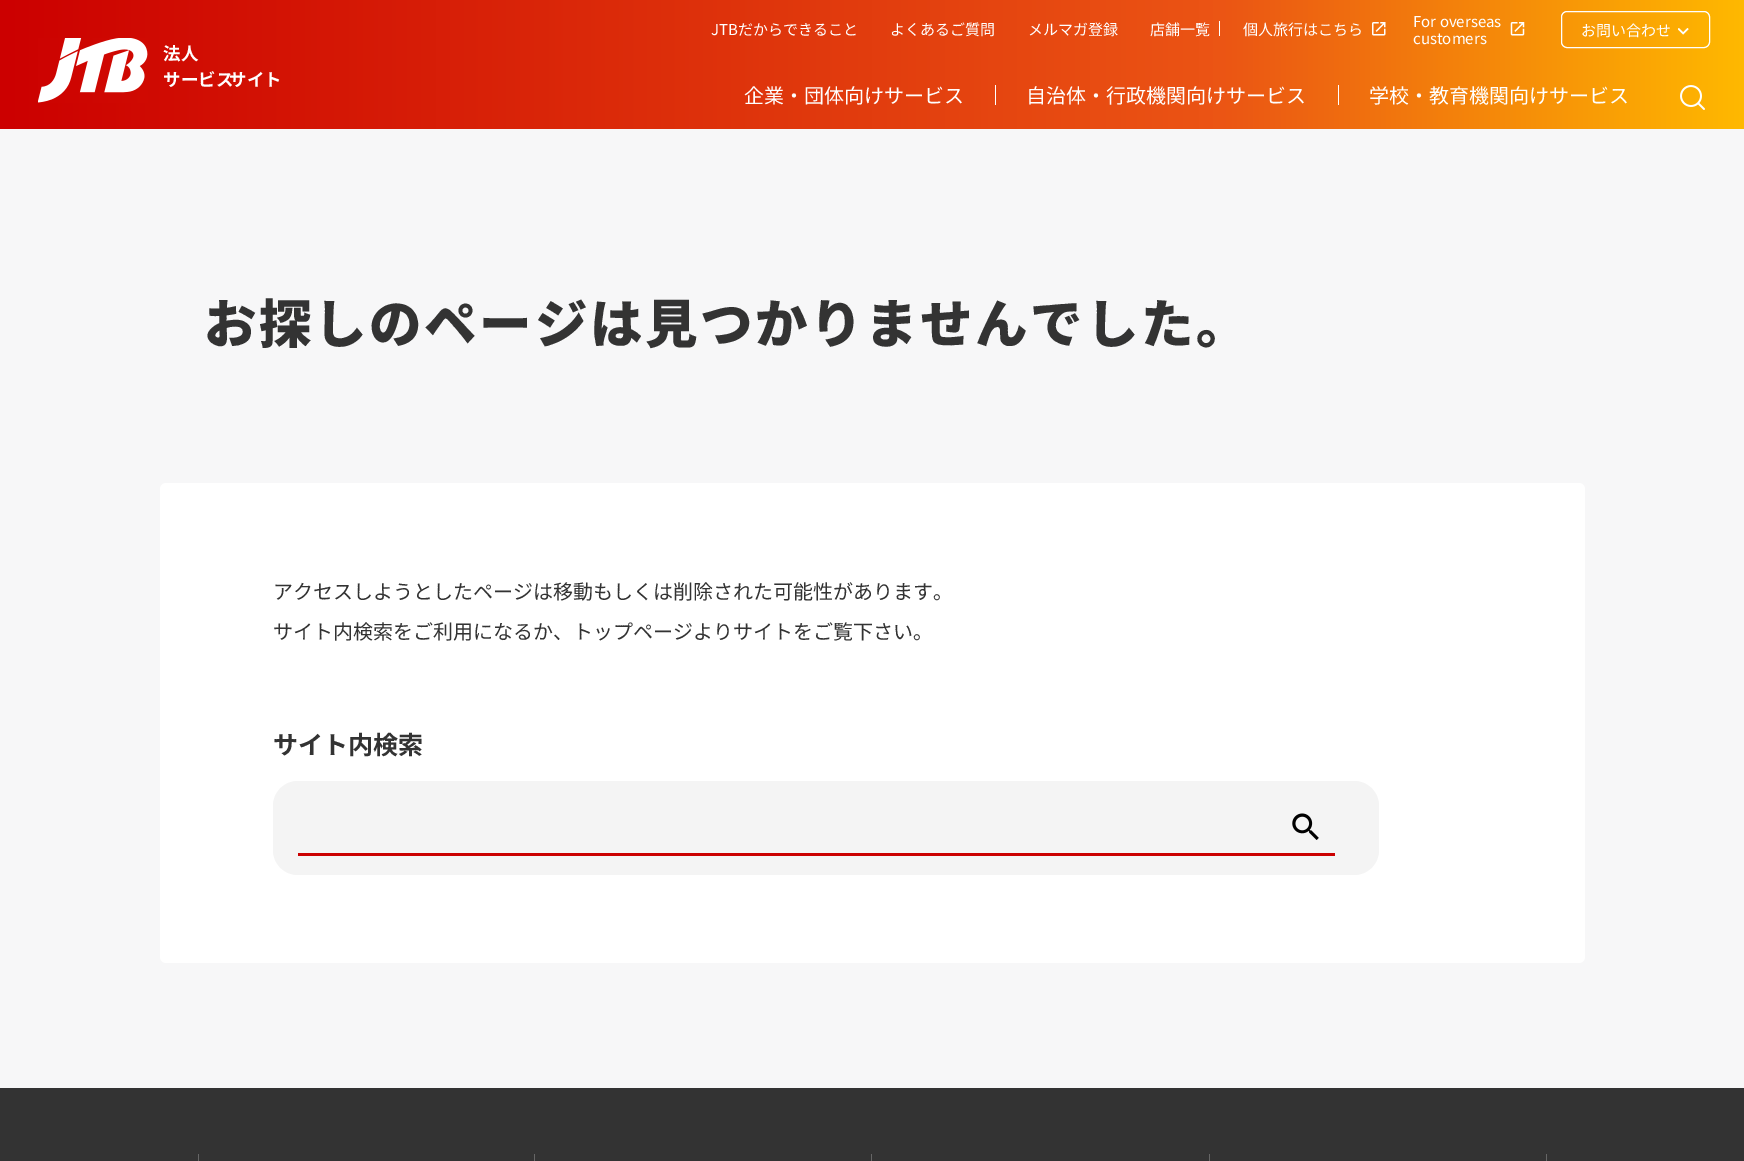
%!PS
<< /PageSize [1744 1161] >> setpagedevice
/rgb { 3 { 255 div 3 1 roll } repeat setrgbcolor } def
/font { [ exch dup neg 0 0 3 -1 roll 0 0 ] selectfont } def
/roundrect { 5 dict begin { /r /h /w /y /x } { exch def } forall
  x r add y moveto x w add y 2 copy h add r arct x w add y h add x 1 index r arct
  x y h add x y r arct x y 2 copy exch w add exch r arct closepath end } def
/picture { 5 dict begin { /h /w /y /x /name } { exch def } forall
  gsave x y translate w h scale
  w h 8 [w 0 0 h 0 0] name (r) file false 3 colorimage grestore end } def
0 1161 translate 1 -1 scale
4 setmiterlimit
247 247 248 rgb
0 0 1744 1161 rectfill
gsave 0 0 moveto 1744 0 lineto 1744 129 lineto 0 129 lineto closepath clip newpath
<< /ShadingType 2 /ColorSpace /DeviceRGB /Coords [0 64 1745 64] /Extend [true true] /Function << /FunctionType 3 /Domain [0 1] /Functions [<< /FunctionType 2 /Domain [0 1] /C0 [0.8 0 0] /C1 [0.922 0.333 0.078] /N 1 >> << /FunctionType 2 /Domain [0 1] /C0 [0.922 0.333 0.078] /C1 [1 0.725 0] /N 1 >>] /Bounds [0.7] /Encode [0 1 0 1] >> >> shfill grestore
255 255 255 rgb
1219 21 1 15 rectfill
(img/1.rgb) 1372 22 14 14 picture
(img/2.rgb) 1510 22 15 14 picture
995 85 1 20 rectfill
1338 85 1 20 rectfill
(img/3.rgb) 1678 28 11 7 picture
1561.5 11.5 148 36 5.5 roundrect stroke
(img/4.rgb) 38 38 110 65 picture
(img/5.rgb) 1680 85 25 25 picture
160 483 1425 480 6 roundrect fill
244 244 244 rgb
273 781 1106 94 25 roundrect fill
(img/6.rgb) 1292 813 27 27 picture
[
  [298 853 1037 3 203 0 0]
  [0 1088 1744 73 51 51 51]
  [534 1154 1 7 102 102 102]
  [198 1154 1 7 102 102 102]
  [871 1154 1 7 102 102 102]
  [1209 1154 1 7 102 102 102]
  [1546 1154 1 7 102 102 102]
] { aload pop rgb rectfill } forall
/NotoSansJP-Regular 15 font
255 255 255 rgb
[
  [(JTBだからできること) 711 35]
  [(よくあるご質問) 890 35]
  [(メルマガ登録) 1028 35]
  [(店舗一覧) 1150 35]
  [(個人旅行はこちら) 1243 35]
  [(For overseas) 1413 27]
  [(customers) 1413 44]
] { aload pop moveto show } forall
/NotoSansJP-Regular 20 font
[
  [(企業・団体向けサービス) 744 103]
  [(自治体・行政機関向けサービス) 1026 103]
  [(学校・教育機関向けサービス) 1369 103]
] { aload pop moveto show } forall
/NotoSansJP-Regular 15 font
1581 36 moveto (お問い合わせ) show
/NotoSansJP-Bold 17.5 font
163 60 moveto (法人) show
163 86 moveto (サービス) show
229 86 moveto (サイト) show
/NotoSansJP-Black 52.5 font
51 51 51 rgb
204 343 moveto 2.6 0 (お探しのページは見つかりませんでした。) ashow
/NotoSansJP-Regular 20 font
273 599 moveto (アクセスしようとしたページは移動もしくは削除された可能性があります。) show
273 639 moveto (サイト内検索をご利用になるか、トップページよりサイトをご覧下さい。) show
/NotoSansJP-Bold 25 font
273 754 moveto (サイト内検索) show
showpage
